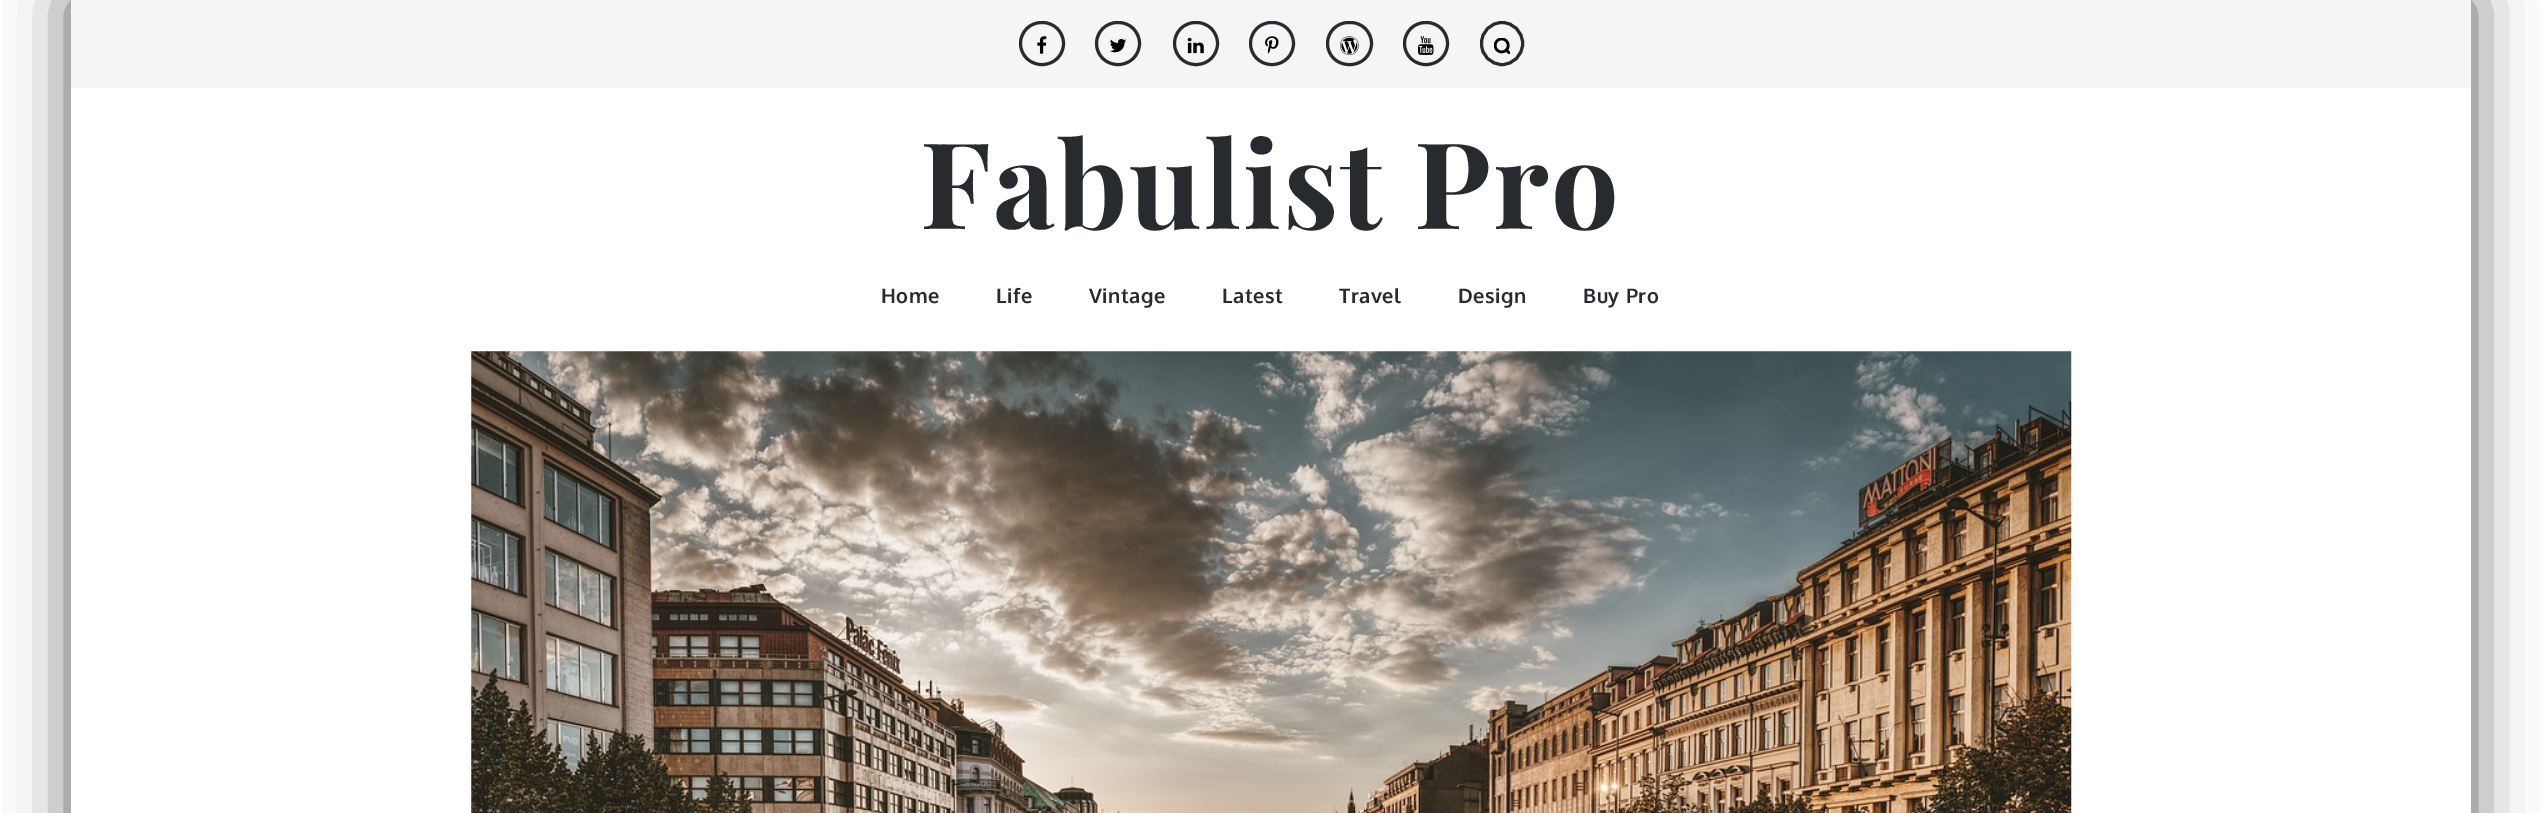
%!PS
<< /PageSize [2541 813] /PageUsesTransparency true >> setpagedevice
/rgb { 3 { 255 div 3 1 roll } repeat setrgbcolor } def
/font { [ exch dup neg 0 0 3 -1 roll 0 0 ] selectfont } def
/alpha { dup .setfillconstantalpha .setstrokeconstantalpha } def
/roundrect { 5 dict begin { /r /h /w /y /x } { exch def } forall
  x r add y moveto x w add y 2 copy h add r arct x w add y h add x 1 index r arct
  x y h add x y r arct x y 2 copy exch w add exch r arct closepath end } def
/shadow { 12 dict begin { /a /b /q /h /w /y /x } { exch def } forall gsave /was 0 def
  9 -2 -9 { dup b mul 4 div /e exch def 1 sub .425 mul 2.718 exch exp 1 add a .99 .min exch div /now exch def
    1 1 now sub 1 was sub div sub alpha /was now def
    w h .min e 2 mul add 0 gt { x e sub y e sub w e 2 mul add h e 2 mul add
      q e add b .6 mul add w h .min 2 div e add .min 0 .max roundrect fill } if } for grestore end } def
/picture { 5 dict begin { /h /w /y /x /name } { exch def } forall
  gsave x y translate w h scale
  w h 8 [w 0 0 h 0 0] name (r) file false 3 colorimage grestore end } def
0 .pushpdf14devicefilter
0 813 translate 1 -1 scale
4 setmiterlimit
255 255 255 rgb
0 0 2541 813 rectfill
gsave
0 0 moveto 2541 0 lineto 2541 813 lineto 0 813 lineto closepath 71 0 moveto 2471 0 lineto 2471 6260 lineto 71 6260 lineto closepath eoclip newpath
85 85 85 rgb
71 0 2400 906 0 31 1 shadow
grestore
245 245 245 rgb
71 0 2400 88 rectfill
39 43 47 rgb
3 setlinewidth
1020.5 22.5 43 42 21 roundrect stroke
(img/1.rgb) 1037 36 10 18 picture
1096.5 22.5 43 42 21 roundrect stroke
(img/2.rgb) 1110 38 17 15 picture
1174.5 22.5 43 42 21 roundrect stroke
(img/3.rgb) 1187 37 17 17 picture
1250.5 22.5 43 42 21 roundrect stroke
(img/4.rgb) 1265 36 14 18 picture
1327.5 22.5 44 42 21 roundrect stroke
(img/5.rgb) 1340 36 19 19 picture
1404.5 22.5 43 42 21 roundrect stroke
(img/6.rgb) 1418 36 16 19 picture
1481.5 22.5 41 42 20.5 roundrect stroke
(img/7.rgb) 1494 38 16 16 picture
(img/8.rgb) 471 351 1601 462 picture
/PlayfairDisplay-Bold 120 font
920 229 moveto 1.9 0 (Fabulist Pro) ashow
/Oxygen-Bold 20 font
881 303 moveto 0.5 0 (Home) ashow
996 303 moveto 0.5 0 (Life) ashow
1089 303 moveto 0.5 0 (Vintage) ashow
1222 303 moveto 0.5 0 (Latest) ashow
1339 303 moveto 0.5 0 (Travel) ashow
1458 303 moveto 0.5 0 (Design) ashow
1583 303 moveto 0.5 0 (Buy Pro) ashow
.poppdf14devicefilter showpage
